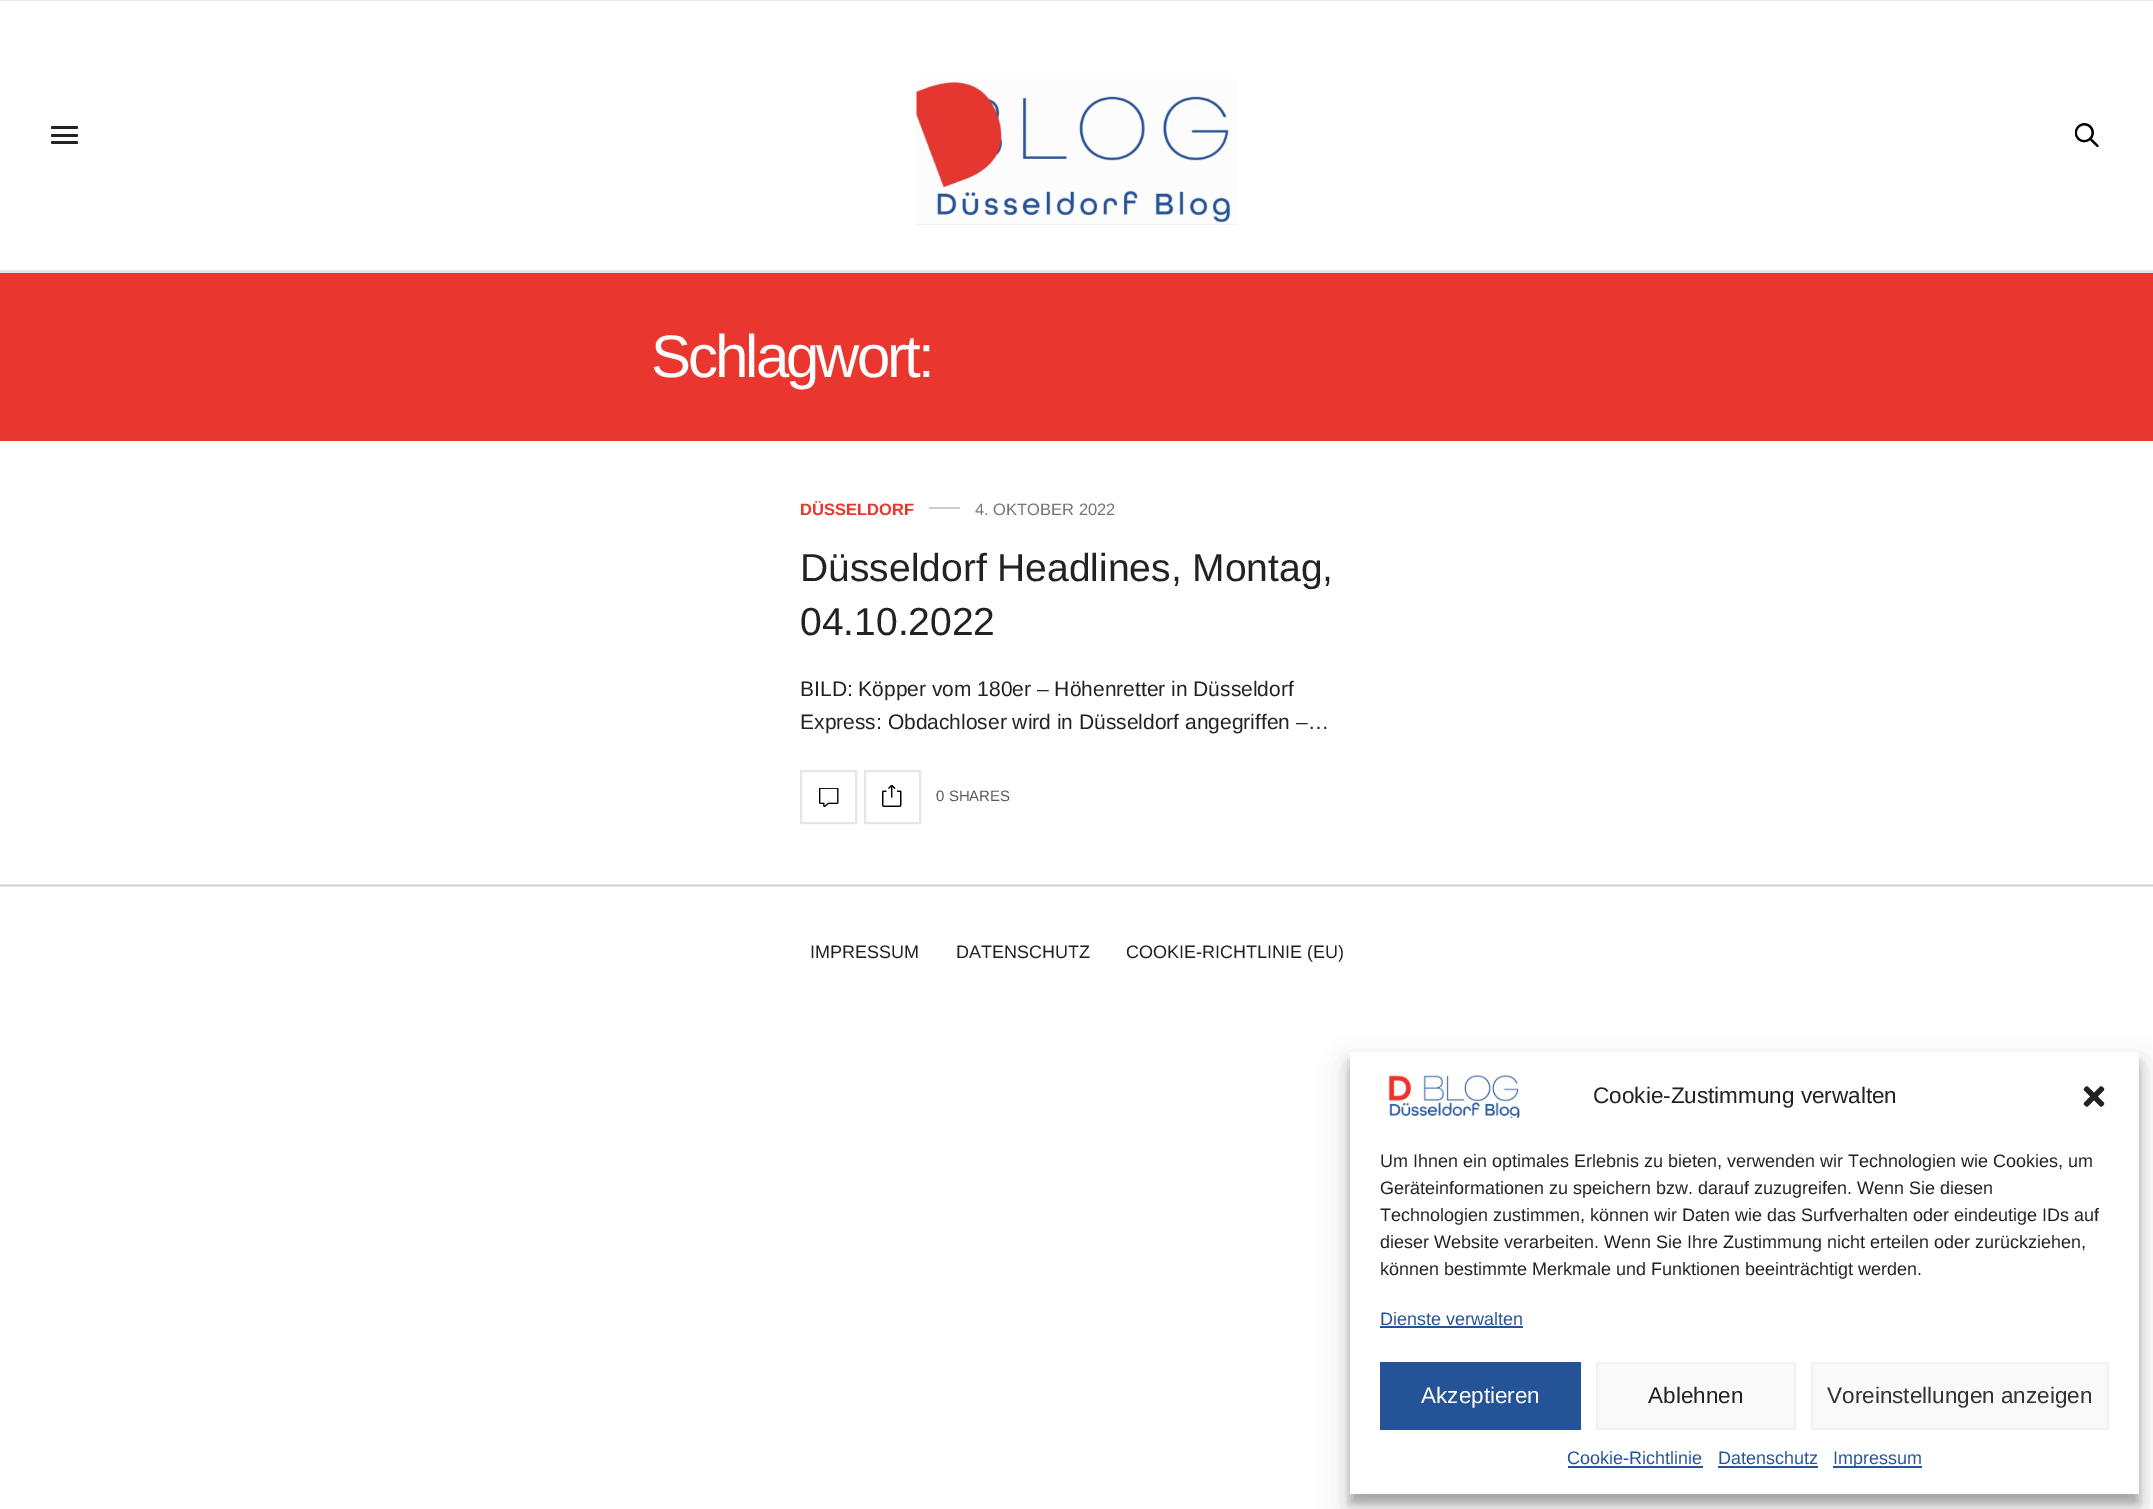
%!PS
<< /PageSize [2153 1509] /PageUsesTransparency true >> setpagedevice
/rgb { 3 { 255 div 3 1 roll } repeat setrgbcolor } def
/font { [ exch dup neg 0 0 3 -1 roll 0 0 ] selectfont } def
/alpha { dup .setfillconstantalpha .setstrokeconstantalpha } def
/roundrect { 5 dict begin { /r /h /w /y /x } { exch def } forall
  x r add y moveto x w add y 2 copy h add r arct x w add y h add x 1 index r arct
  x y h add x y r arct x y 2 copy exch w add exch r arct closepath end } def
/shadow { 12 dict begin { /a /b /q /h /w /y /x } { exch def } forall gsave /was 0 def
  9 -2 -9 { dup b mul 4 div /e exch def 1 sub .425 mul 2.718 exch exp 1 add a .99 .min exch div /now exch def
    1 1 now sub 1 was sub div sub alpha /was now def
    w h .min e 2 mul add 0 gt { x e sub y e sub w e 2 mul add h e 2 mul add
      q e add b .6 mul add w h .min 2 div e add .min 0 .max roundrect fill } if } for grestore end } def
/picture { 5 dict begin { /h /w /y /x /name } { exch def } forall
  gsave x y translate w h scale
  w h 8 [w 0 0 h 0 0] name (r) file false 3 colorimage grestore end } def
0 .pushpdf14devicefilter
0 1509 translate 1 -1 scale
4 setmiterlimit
255 255 255 rgb
0 0 2153 1509 rectfill
[
  [0 886 2153 1 230 230 230]
  [0 0 2153 1 230 230 230]
  [0 270 2153 3 230 230 230]
] { aload pop rgb rectfill } forall
34 34 34 rgb
51 126 27 3 1.5 roundrect fill
51 134 27 3 1.5 roundrect fill
51 141 27 3 1.5 roundrect fill
(img/1.rgb) 916 79 322 146 picture
(img/2.rgb) 2075 123 24 24 picture
233 55 47 rgb
0 273 2153 168 rectfill
204 204 204 rgb
929 507 31 2 rectfill
230 230 230 rgb
2 setlinewidth
801 771 55 52 rectstroke
(img/3.rgb) 819 788 20 19 picture
865 771 55 52 rectstroke
(img/4.rgb) 882 785 20 22 picture
0 884 2153 1 rectfill
207 207 207 rgb
0 885 2153 1 rectfill
0 0 0 rgb
1350 1061 789 442 0 4.5 0.23 shadow
1350 1067 789 442 0 15 0.19 shadow
255 255 255 rgb
1350 1052 789 442 rectfill
(img/5.rgb) 1388 1075 132 43 picture
(img/6.rgb) 2083 1086 22 21 picture
36 83 152 rgb
1380 1326 143 2 rectfill
1380 1362 201 68 rectfill
249 249 249 rgb
1597 1363 moveto 1795 1363 lineto 1795 1429 lineto 1597 1429 lineto closepath gsave fill grestore
242 242 242 rgb
stroke
249 249 249 rgb
1812 1363 moveto 2108 1363 lineto 2108 1429 lineto 1812 1429 lineto closepath gsave fill grestore
242 242 242 rgb
stroke
[
  [1568 1466 135 2 36 83 152]
  [1718 1466 100 2 36 83 152]
  [1833 1466 89 2 36 83 152]
] { aload pop rgb rectfill } forall
/LiberationSans-Regular 60 font
255 255 255 rgb
651 377 moveto -3 0 (Schlagwort:) ashow
/LiberationSans-Bold 16.5 font
233 55 47 rgb
800 515 moveto (DÜSSELDORF) show
/LiberationSans-Regular 16.5 font
118 118 118 rgb
975 515 moveto (4. OKTOBER 2022) show
/LiberationSans-Regular 39 font
34 34 34 rgb
800 581 moveto (Düsseldorf Headlines, Montag,) show
800 635 moveto (04.10.2022) show
/LiberationSans-Regular 21 font
800 696 moveto (BILD: Köpper vom 180er – Höhenretter in Düsseldorf) show
800 729 moveto (Express: Obdachloser wird in Düsseldorf angegriffen –…) show
/LiberationSans-Regular 15 font
89 89 89 rgb
936 801 moveto (0 SHARES) show
/LiberationSans-Regular 18 font
34 34 34 rgb
[
  [(IMPRESSUM) 810 958]
  [(DATENSCHUTZ) 956 958]
  [(COOKIE-RICHTLINIE \(EU\)) 1126 958]
] { aload pop moveto show } forall
/LiberationSans-Regular 22.5 font
1593 1103 moveto (Cookie-Zustimmung verwalten) show
/LiberationSans-Regular 18 font
[
  [(Um Ihnen ein optimales Erlebnis zu bieten, verwenden wir Technologien wie Cookies, um) 1380 1167]
  [(Geräteinformationen zu speichern bzw. darauf zuzugreifen. Wenn Sie diesen) 1380 1194]
  [(Technologien zustimmen, können wir Daten wie das Surfverhalten oder eindeutige IDs auf) 1380 1221]
  [(dieser Website verarbeiten. Wenn Sie Ihre Zustimmung nicht erteilen oder zurückziehen,) 1380 1248]
  [(können bestimmte Merkmale und Funktionen beeinträchtigt werden.) 1380 1275]
] { aload pop moveto show } forall
36 83 152 rgb
1380 1325 moveto (Dienste verwalten) show
/LiberationSans-Regular 22.5 font
255 255 255 rgb
1421 1403 moveto (Akzeptieren) show
34 34 34 rgb
1648 1403 moveto (Ablehnen) show
51 51 51 rgb
1827 1403 moveto (Voreinstellungen anzeigen) show
/LiberationSans-Regular 18 font
36 83 152 rgb
[
  [(Cookie-Richtlinie) 1567 1464]
  [(Datenschutz) 1718 1464]
  [(Impressum) 1833 1464]
] { aload pop moveto show } forall
.poppdf14devicefilter showpage
